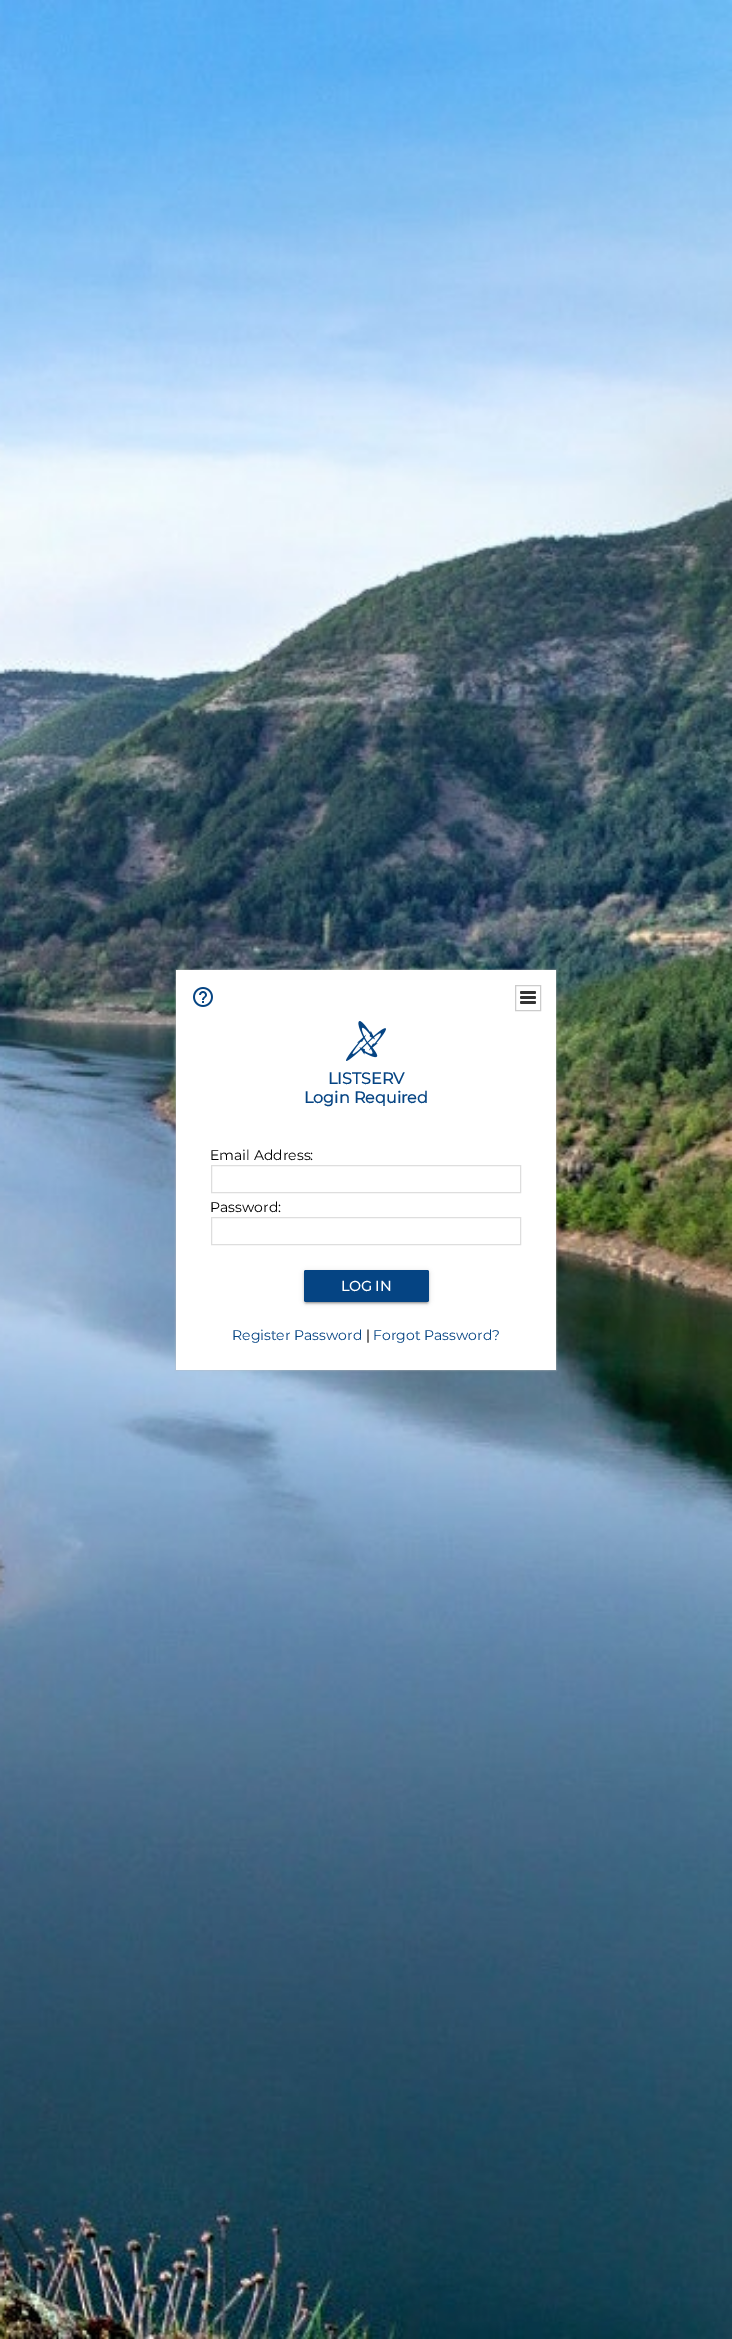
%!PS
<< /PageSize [732 2339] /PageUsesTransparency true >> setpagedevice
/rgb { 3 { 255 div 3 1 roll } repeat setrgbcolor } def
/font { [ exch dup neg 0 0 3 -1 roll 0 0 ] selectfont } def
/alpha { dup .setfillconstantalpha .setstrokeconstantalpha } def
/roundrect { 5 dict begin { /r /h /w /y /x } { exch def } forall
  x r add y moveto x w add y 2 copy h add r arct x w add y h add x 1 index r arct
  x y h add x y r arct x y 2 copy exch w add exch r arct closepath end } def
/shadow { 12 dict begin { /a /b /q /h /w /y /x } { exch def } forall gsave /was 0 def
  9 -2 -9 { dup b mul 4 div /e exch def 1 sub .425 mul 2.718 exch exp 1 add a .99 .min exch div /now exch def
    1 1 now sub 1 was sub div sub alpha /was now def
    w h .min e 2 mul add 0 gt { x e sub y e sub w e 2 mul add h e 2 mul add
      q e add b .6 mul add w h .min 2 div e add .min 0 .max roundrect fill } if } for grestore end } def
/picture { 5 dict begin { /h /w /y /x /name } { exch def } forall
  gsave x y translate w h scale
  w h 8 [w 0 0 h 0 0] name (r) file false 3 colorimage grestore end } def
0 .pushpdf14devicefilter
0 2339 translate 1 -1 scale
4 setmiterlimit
255 255 255 rgb
0 0 732 2339 rectfill
(img/1.rgb) 0 0 732 2339 picture
187 187 187 rgb
176 970 380 400 0 1 1 shadow
255 255 255 rgb
176 970 380 400 rectfill
(img/2.rgb) 193 987 20 20 picture
204 204 204 rgb
515.5 985.5 25 25 rectstroke
(img/3.rgb) 520 991 16 13 picture
(img/4.rgb) 346 1021 40 40 picture
222 222 222 rgb
211.5 1165.5 309 27 rectstroke
211.5 1217.5 309 27 rectstroke
0 0 0 rgb
306 1275 121 28 0 0.5 0.2 shadow
304 1271 125 32 2 2.5 0.12 shadow
304 1272 125 32 2 1 0.14 shadow
5 68 131 rgb
304 1270 125 32 2 roundrect fill
/Montserrat-Bold 16 font
328 1084 moveto (LISTSERV) show
304 1103 moveto (Login Required) show
/Montserrat-Thin 14 font
0 0 0 rgb
210 1160 moveto (Email Address:) show
210 1212 moveto (Password:) show
/Montserrat-Bold 14 font
255 255 255 rgb
341 1291 moveto (LOG IN) show
/Montserrat-Thin 14 font
5 68 131 rgb
232 1340 moveto (Register Password) show
0 0 0 rgb
366 1340 moveto (|) show
5 68 131 rgb
373 1340 moveto (Forgot Password?) show
.poppdf14devicefilter showpage
